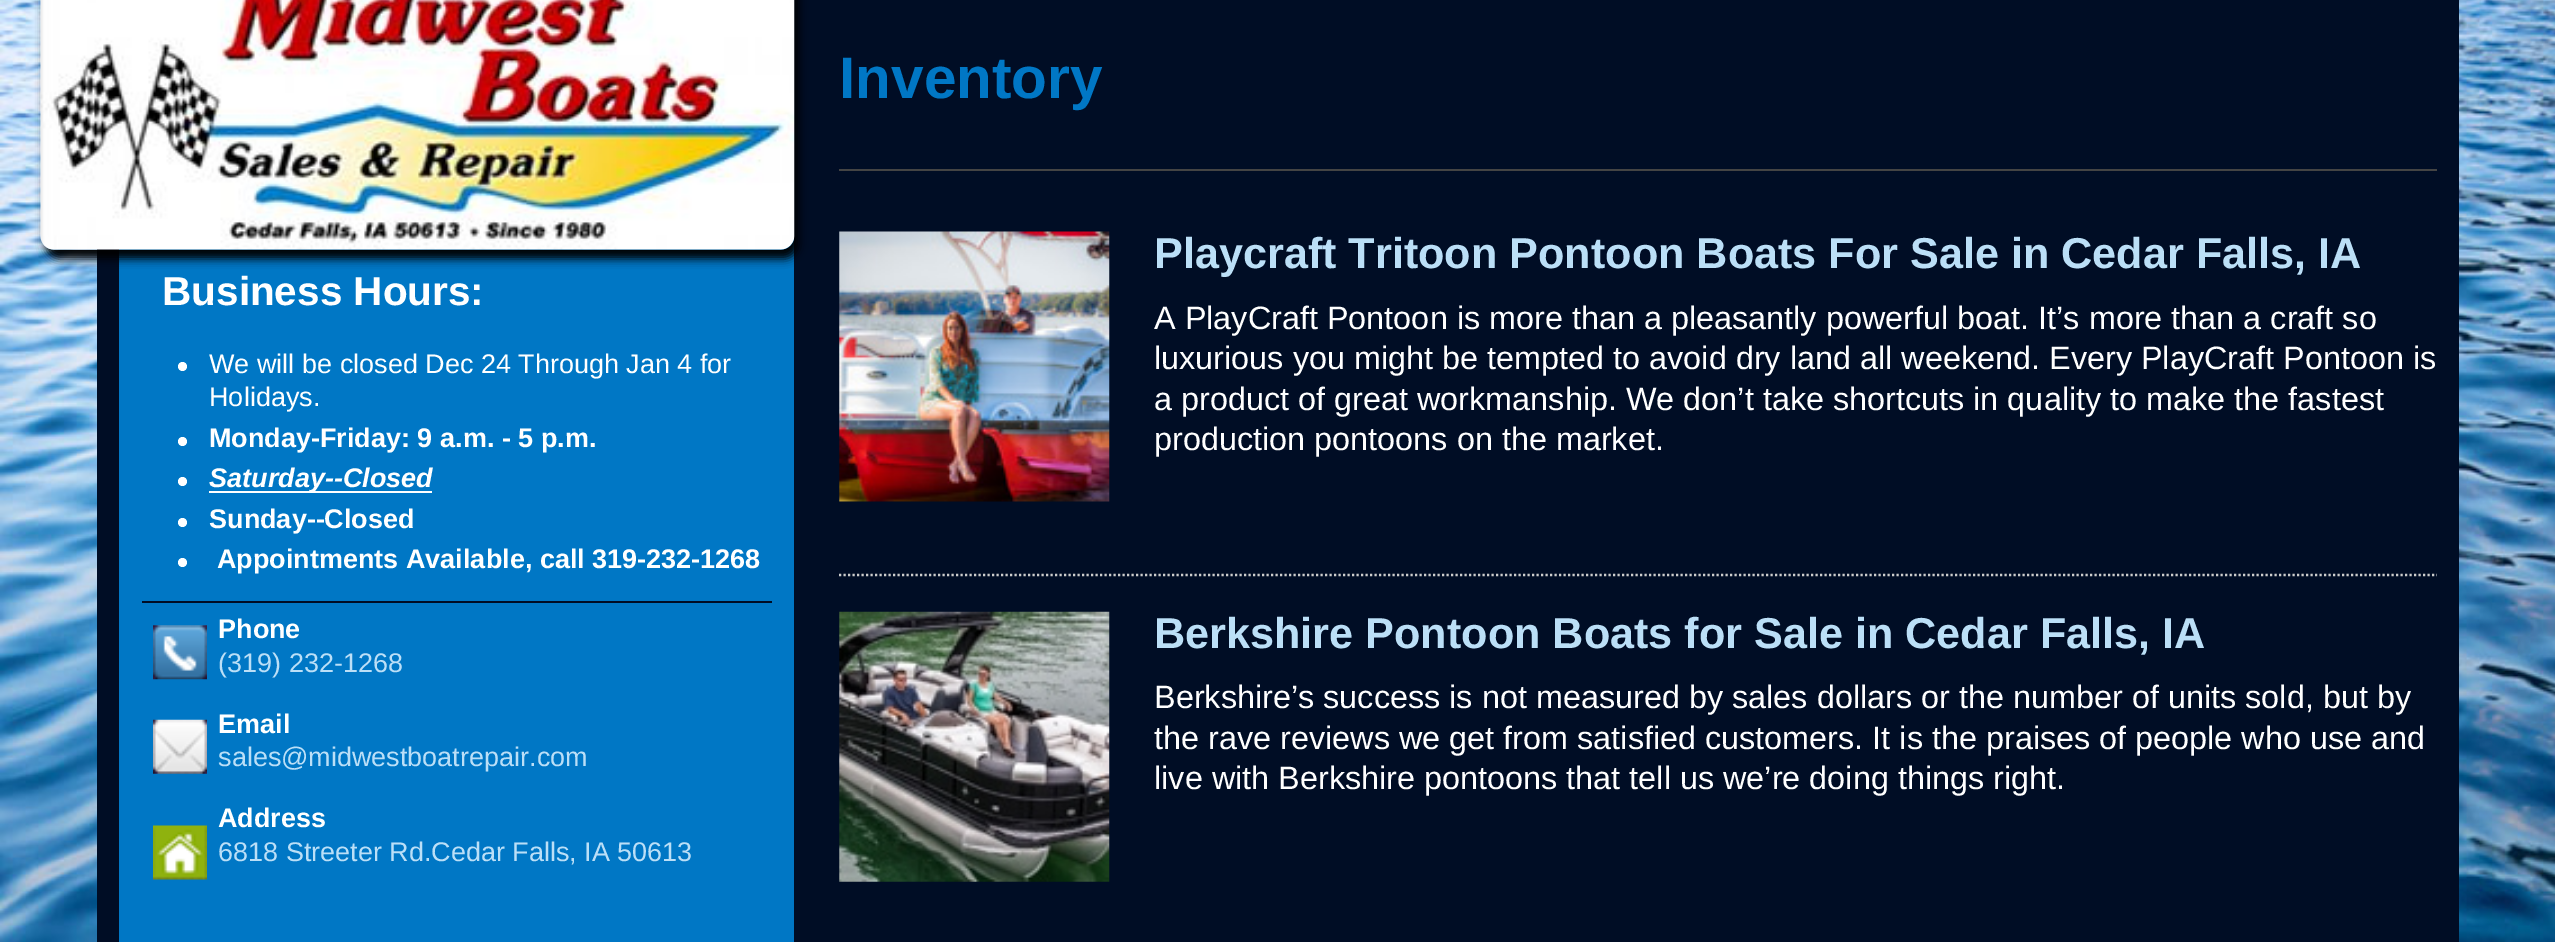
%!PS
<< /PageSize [2555 942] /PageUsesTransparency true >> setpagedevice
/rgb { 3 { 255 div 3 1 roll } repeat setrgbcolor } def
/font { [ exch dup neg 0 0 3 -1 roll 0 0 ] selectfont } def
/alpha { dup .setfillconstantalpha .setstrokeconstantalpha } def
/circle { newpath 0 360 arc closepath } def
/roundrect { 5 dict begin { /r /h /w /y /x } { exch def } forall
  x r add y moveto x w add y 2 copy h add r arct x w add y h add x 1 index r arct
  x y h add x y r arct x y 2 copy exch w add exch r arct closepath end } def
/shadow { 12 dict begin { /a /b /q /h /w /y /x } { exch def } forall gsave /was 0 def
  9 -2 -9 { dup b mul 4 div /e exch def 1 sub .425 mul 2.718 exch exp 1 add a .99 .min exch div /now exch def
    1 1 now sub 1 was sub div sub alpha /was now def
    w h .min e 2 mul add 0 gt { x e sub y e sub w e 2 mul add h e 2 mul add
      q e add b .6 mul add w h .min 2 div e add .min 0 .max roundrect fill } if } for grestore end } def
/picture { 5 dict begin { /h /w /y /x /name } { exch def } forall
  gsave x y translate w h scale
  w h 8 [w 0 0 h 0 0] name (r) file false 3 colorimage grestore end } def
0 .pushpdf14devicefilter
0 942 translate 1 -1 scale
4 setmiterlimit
255 255 255 rgb
0 0 2555 942 rectfill
(img/1.rgb) 0 0 2555 942 picture
0 13 37 rgb
97 0 2362 942 rectfill
0 119 197 rgb
119 239 675 703 rectfill
0 0 0 rgb
45 -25 754 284 14 4.5 1 shadow
(img/2.rgb) 40 0 755 250 picture
255 255 255 rgb
182.5 366.5 4.5 circle fill
182.5 441.5 4.5 circle fill
182.5 481.5 4.5 circle fill
209 491 223 2 rectfill
182.5 522.5 4.5 circle fill
182.5 562.5 4.5 circle fill
0 13 37 rgb
142 601 630 2 rectfill
(img/3.rgb) 153 625 54 55 picture
(img/4.rgb) 153 719 54 55 picture
(img/5.rgb) 153 825 54 55 picture
68 68 68 rgb
839 169 1598 2 rectfill
204 204 204 rgb
2.2 setlinewidth
[2.25 2.25] 0 setdash
839 575 moveto 2437 575 lineto stroke
(img/6.rgb) 839 231 271 271 picture
(img/7.rgb) 839 611 271 271 picture
/LiberationSans-Bold 40.5 font
255 255 255 rgb
162 305 moveto (Business Hours:) show
/LiberationSans-Regular 27 font
209 373 moveto (We will be closed Dec 24 Through Jan 4 for) show
209 406 moveto (Holidays.) show
/LiberationSans-Bold 27 font
209 447 moveto (Monday-Friday: 9 a.m. - 5 p.m.) show
/LiberationSans-BoldItalic 27 font
209 487 moveto (Saturday--Closed) show
/LiberationSans-Bold 27 font
[
  [(Sunday--Closed) 209 528]
  [(Appointments Available, call 319-232-1268) 217 568]
  [(Phone) 218 638]
] { aload pop moveto show } forall
/LiberationSans-Regular 27 font
187 223 247 rgb
218 672 moveto (\(319\) 232-1268) show
/LiberationSans-Bold 27 font
255 255 255 rgb
218 733 moveto (Email) show
/LiberationSans-Regular 27 font
187 223 247 rgb
218 766 moveto (sales@midwestboatrepair.com) show
/LiberationSans-Bold 27 font
255 255 255 rgb
218 827 moveto (Address) show
/LiberationSans-Regular 27 font
187 223 247 rgb
218 861 moveto (6818 Streeter Rd.Cedar Falls, IA 50613) show
/LiberationSans-Bold 58.5 font
0 119 197 rgb
839 98 moveto (Inventory) show
/LiberationSans-Bold 43.2 font
187 223 247 rgb
1154 268 moveto (Playcraft Tritoon Pontoon Boats For Sale in Cedar Falls, IA) show
/LiberationSans-Regular 32.4 font
255 255 255 rgb
[
  [(A PlayCraft Pontoon is more than a pleasantly powerful boat. It’s more than a craft so) 1154 329]
  [(luxurious you might be tempted to avoid dry land all weekend. Every PlayCraft Pontoon is) 1154 369]
  [(a product of great workmanship. We don’t take shortcuts in quality to make the fastest) 1154 410]
  [(production pontoons on the market.) 1154 450]
] { aload pop moveto show } forall
/LiberationSans-Bold 43.2 font
187 223 247 rgb
1154 648 moveto (Berkshire Pontoon Boats for Sale in Cedar Falls, IA) show
/LiberationSans-Regular 32.4 font
255 255 255 rgb
[
  [(Berkshire’s success is not measured by sales dollars or the number of units sold, but by) 1154 708]
  [(the rave reviews we get from satisfied customers. It is the praises of people who use and) 1154 749]
  [(live with Berkshire pontoons that tell us we’re doing things right.) 1154 789]
] { aload pop moveto show } forall
.poppdf14devicefilter showpage
